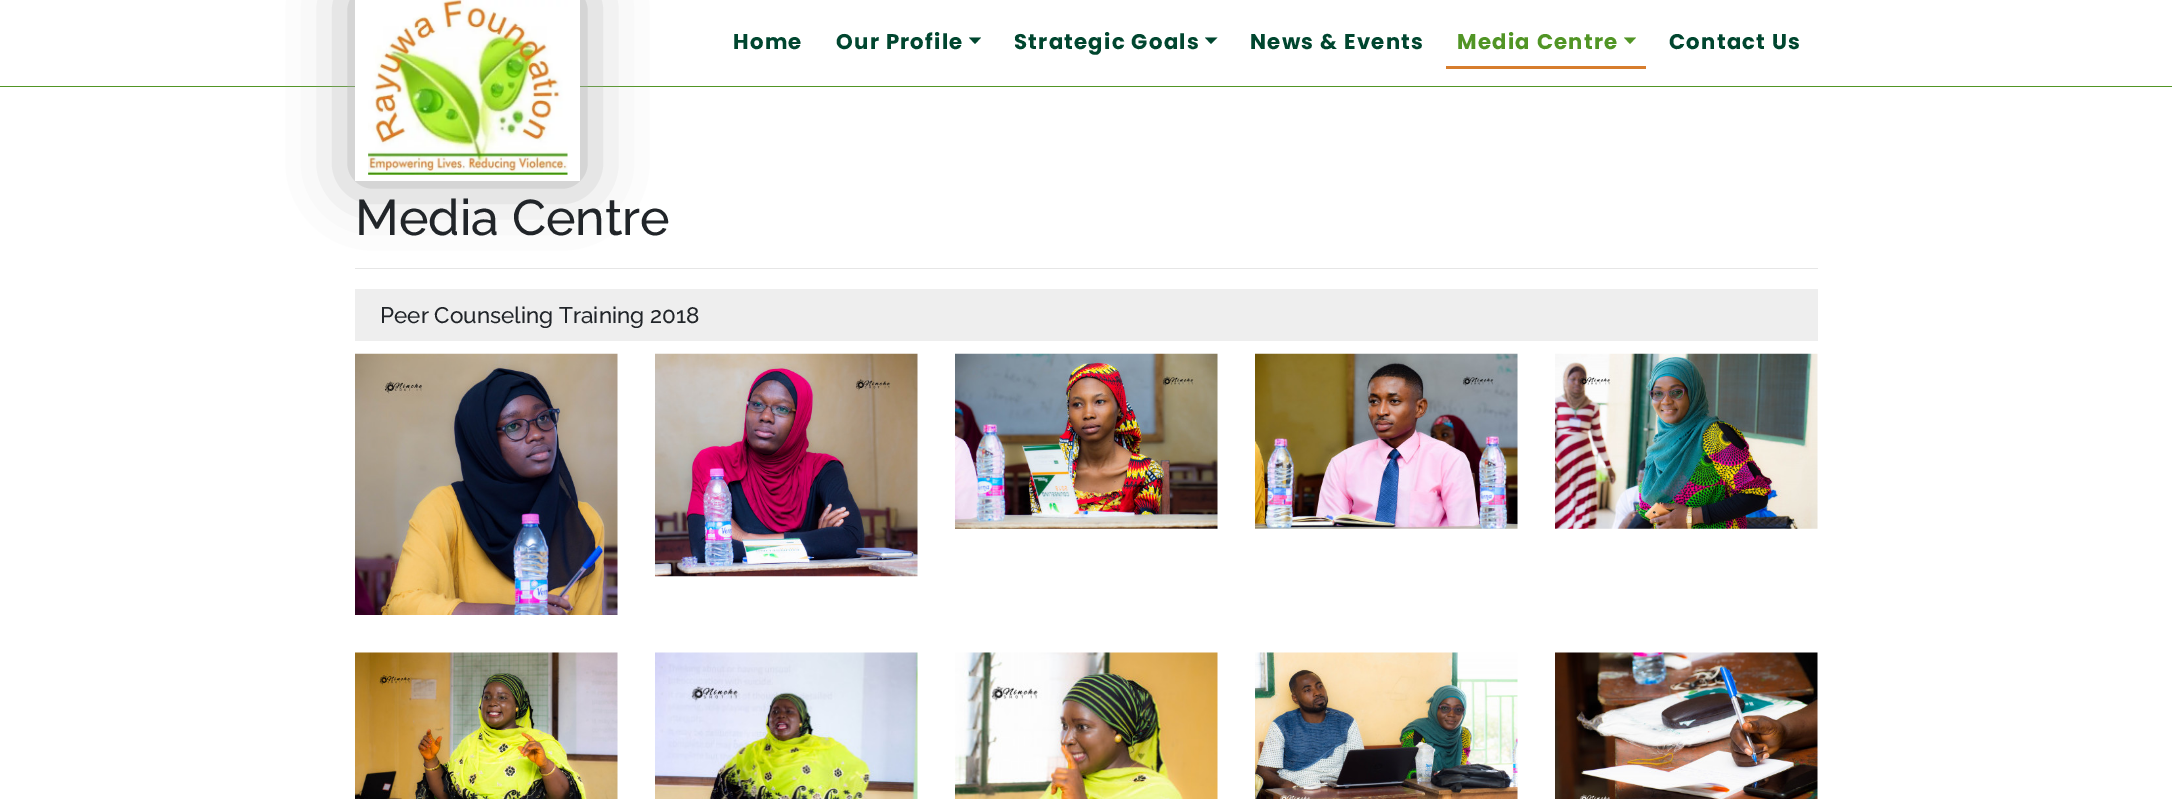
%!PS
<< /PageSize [2172 799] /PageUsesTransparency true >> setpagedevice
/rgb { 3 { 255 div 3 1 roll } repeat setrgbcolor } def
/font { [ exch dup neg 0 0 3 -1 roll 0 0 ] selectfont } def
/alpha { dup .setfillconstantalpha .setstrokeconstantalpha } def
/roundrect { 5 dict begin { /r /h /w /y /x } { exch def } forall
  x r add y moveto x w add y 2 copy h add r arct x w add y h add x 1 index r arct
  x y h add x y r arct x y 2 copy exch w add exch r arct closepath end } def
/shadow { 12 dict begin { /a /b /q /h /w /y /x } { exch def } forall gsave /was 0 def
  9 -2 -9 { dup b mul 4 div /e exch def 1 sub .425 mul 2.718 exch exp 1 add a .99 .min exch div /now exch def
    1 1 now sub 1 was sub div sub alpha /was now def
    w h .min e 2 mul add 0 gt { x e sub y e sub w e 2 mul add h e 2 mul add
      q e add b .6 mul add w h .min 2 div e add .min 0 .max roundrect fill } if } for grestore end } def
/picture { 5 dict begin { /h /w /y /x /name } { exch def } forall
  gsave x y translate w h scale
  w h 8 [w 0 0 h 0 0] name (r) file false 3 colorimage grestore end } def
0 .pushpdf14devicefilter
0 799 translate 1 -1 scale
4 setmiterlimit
255 255 255 rgb
0 0 2172 799 rectfill
81 149 37 rgb
0 86 2172 1 rectfill
230 230 230 rgb
355 268 1463 1 rectfill
170 170 170 rgb
355 -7 225 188 0 31 1 shadow
255 255 255 rgb
355 0 225 181 rectfill
(img/1.rgb) 368 0 200 175 picture
0 70 47 rgb
969 37.5 moveto 981 37.5 lineto 975 44 lineto closepath fill
1205 37.5 moveto 1217.5 37.5 lineto 1211 44 lineto closepath fill
215 125 45 rgb
1446 66 200 3 rectfill
81 149 37 rgb
1624 37.5 moveto 1636 37.5 lineto 1630 44 lineto closepath fill
238 238 238 rgb
355 289 1463 52 rectfill
(img/2.rgb) 355 353 263 262 picture
(img/3.rgb) 655 353 263 224 picture
(img/4.rgb) 955 353 263 176 picture
(img/5.rgb) 1255 353 263 176 picture
(img/6.rgb) 1555 353 263 176 picture
(img/7.rgb) 355 652 263 147 picture
(img/8.rgb) 655 652 263 147 picture
(img/9.rgb) 955 652 263 147 picture
(img/10.rgb) 1255 652 263 147 picture
(img/11.rgb) 1555 652 263 147 picture
/Poppins-Bold 21.25 font
0 70 47 rgb
733 49 moveto 1.25 0 (Home) ashow
836 49 moveto 1.25 0 (Our Profile) ashow
1014 49 moveto 1.25 0 (Strategic Goals) ashow
1250 49 moveto 1.25 0 (News & Events) ashow
81 149 37 rgb
1457 49 moveto 1.25 0 (Media Centre) ashow
0 70 47 rgb
1669 49 moveto 1.25 0 (Contact Us) ashow
/Raleway-Medium 50 font
33 37 41 rgb
355 235 moveto (Media Centre) show
/Raleway-Medium 22.5 font
380 323 moveto (Peer Counseling Training 2018) show
.poppdf14devicefilter showpage
